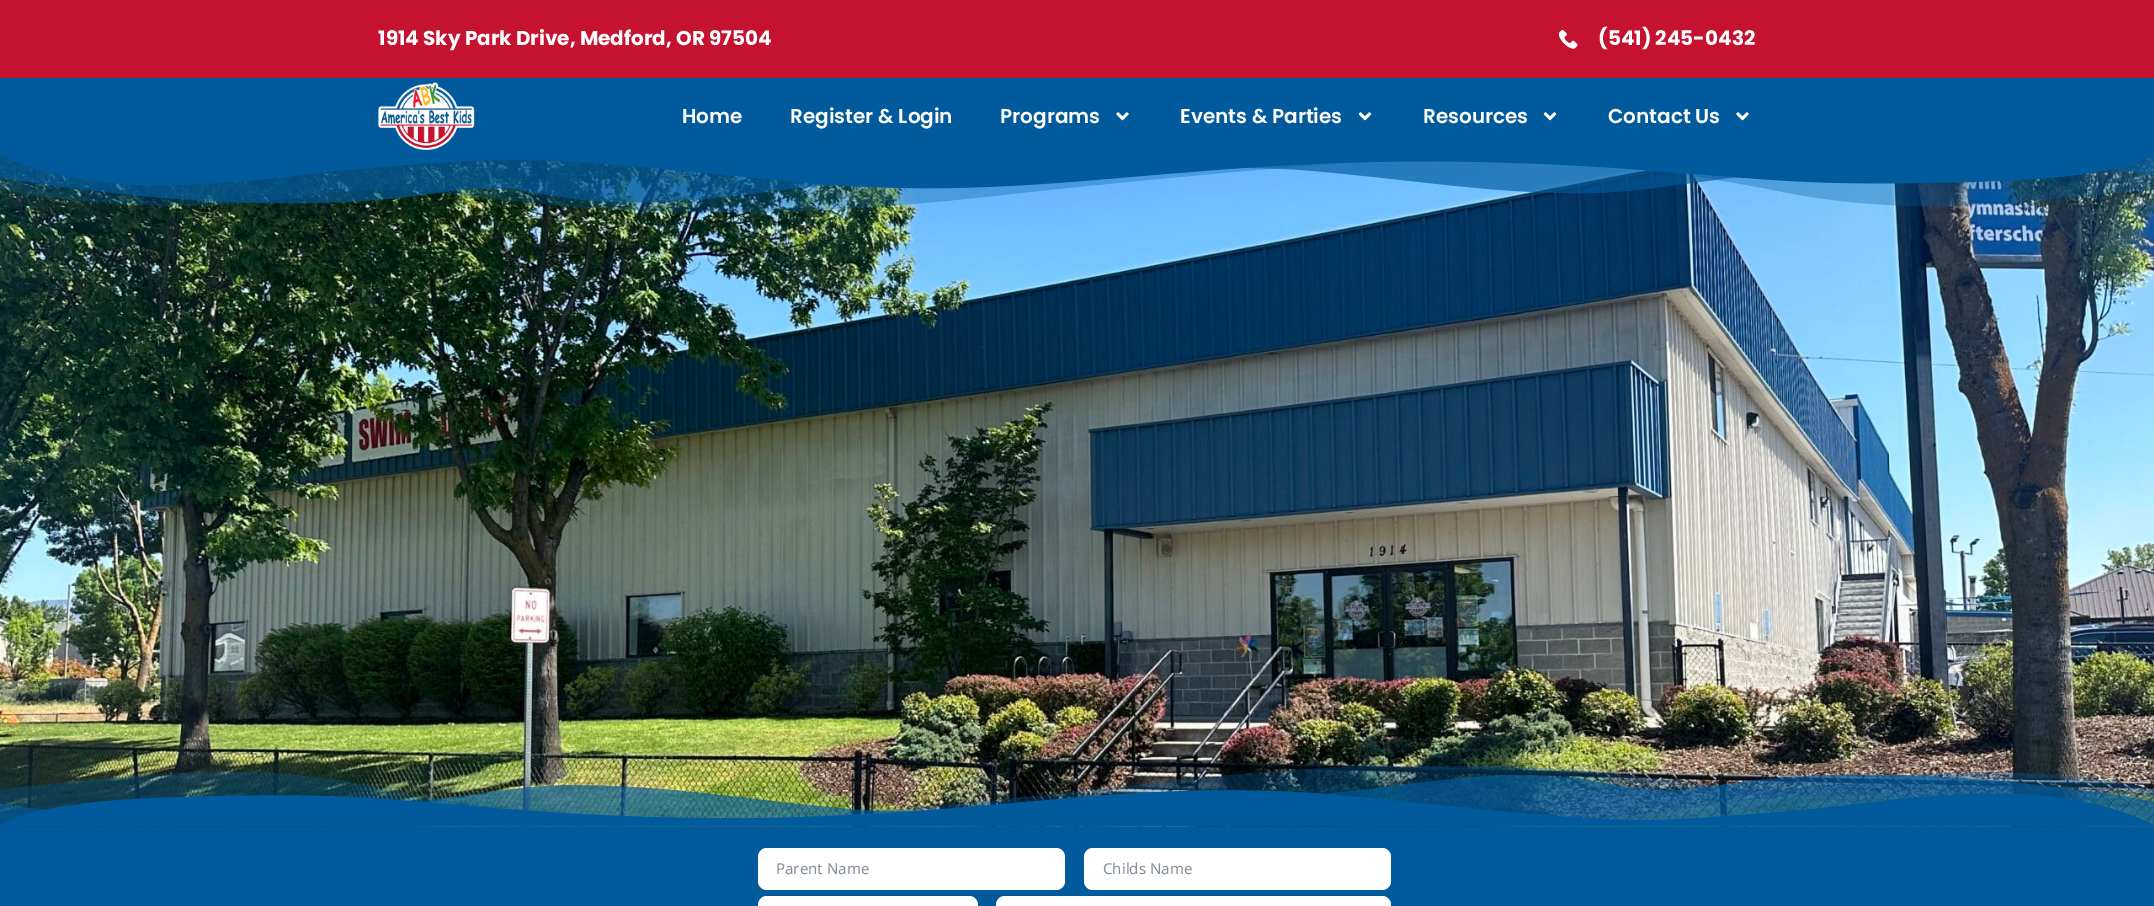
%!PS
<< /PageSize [2154 906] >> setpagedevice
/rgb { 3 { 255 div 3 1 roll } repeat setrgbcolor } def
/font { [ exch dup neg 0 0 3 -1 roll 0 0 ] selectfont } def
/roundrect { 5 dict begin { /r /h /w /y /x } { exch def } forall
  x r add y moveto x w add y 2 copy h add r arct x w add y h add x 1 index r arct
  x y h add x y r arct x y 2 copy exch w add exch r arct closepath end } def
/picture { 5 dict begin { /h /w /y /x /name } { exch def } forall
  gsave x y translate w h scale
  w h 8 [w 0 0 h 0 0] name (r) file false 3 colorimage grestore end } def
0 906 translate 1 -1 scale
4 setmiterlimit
1 90 156 rgb
0 0 2154 906 rectfill
196 18 48 rgb
0 0 2154 78 rectfill
(img/1.rgb) 1559 30 19 19 picture
(img/2.rgb) 378 82 97 68 picture
(img/3.rgb) 1116 112 13 9 picture
(img/4.rgb) 1358 112 14 9 picture
(img/4.rgb) 1543 112 14 9 picture
(img/3.rgb) 1736 112 13 9 picture
(img/5.rgb) 0 155 2154 672 picture
(img/6.rgb) 0 155 2154 58 picture
(img/7.rgb) 0 766 2154 61 picture
255 255 255 rgb
758 848 307 42 9 roundrect fill
1084 848 307 42 9 roundrect fill
758 896 220 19 9 roundrect fill
996 896 395 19 9 roundrect fill
/Poppins-Bold 20 font
378 45 moveto (1914 Sky Park Drive, Medford, OR 97504) show
1598 45 moveto (\(541\) 245-0432) show
/Poppins-SemiBold 20 font
[
  [(Home) 682 123]
  [(Register & Login) 790 123]
  [(Programs) 1000 123]
  [(Events & Parties) 1180 123]
  [(Resources) 1423 123]
  [(Contact Us) 1608 123]
] { aload pop moveto show } forall
/NotoSans-Regular 15 font
134 142 150 rgb
776 874 moveto (Parent Name) show
1103 874 moveto (Childs Name) show
showpage
